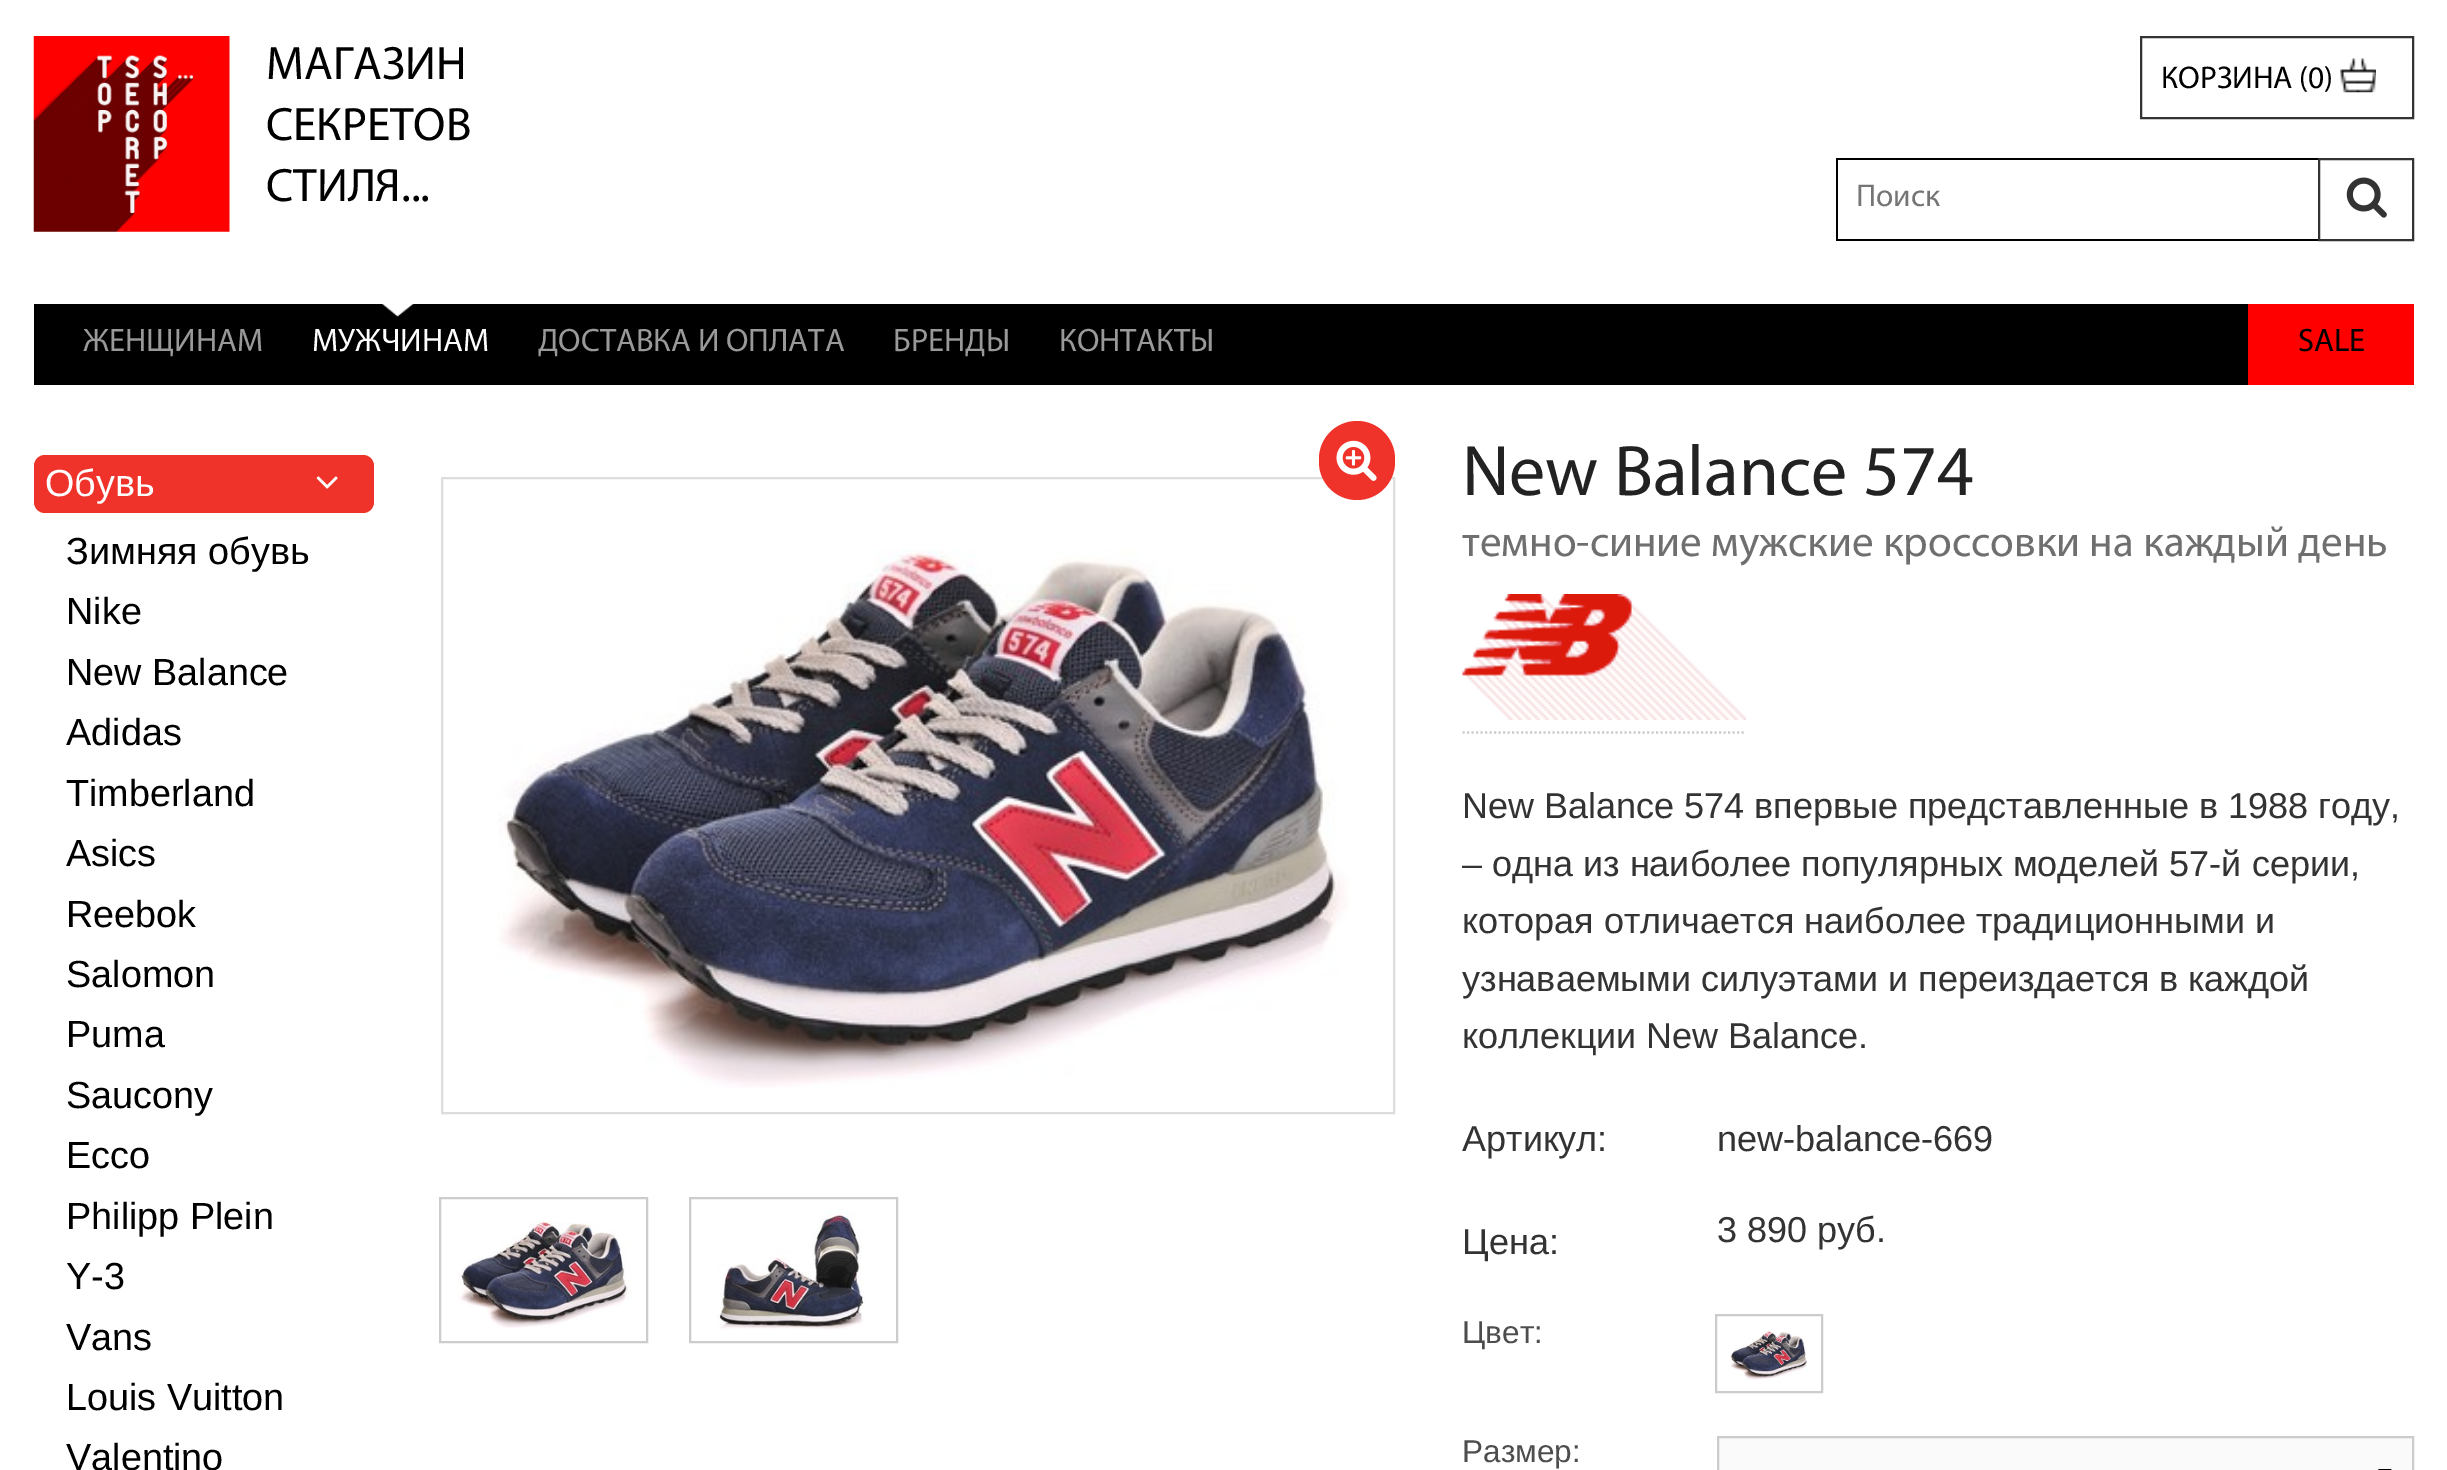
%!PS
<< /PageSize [2447 1470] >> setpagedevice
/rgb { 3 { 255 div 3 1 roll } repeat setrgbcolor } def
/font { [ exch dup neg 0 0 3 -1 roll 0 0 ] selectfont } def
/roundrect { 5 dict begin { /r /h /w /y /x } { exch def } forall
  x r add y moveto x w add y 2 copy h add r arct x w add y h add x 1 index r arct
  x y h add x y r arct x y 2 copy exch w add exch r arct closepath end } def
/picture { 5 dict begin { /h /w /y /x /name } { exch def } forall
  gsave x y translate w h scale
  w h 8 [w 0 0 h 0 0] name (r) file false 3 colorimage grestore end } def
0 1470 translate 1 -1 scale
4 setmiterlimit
255 255 255 rgb
0 0 2447 1470 rectfill
(img/1.rgb) 33 36 197 196 picture
51 51 51 rgb
2 setlinewidth
2141 37 272 81 rectstroke
(img/2.rgb) 2340 58 36 35 picture
[
  [1836 158 482 2 0 0 0]
  [1836 239 482 2 0 0 0]
  [1836 158 2 83 0 0 0]
] { aload pop rgb rectfill } forall
51 51 51 rgb
2319 159 94 81 rectstroke
(img/3.rgb) 2346 177 41 41 picture
0 0 0 rgb
34 304 2214 81 rectfill
(img/4.rgb) 382 304 32 13 picture
255 0 0 rgb
2248 304 166 81 rectfill
240 51 42 rgb
34 455 340 58 11 roundrect fill
(img/5.rgb) 316 476 22 13 picture
221 221 221 rgb
442 478 952 635 rectstroke
240 51 42 rgb
1319 421 76 79 38 roundrect fill
(img/6.rgb) 1336 440 41 41 picture
(img/7.rgb) 498 549 851 539 picture
204 204 204 rgb
440 1198 207 144 rectstroke
(img/8.rgb) 457 1221 175 107 picture
690 1198 207 144 rectstroke
(img/9.rgb) 716 1210 149 120 picture
2.2 setlinewidth
[2.25 2.25] 0 setdash
1462.5 732.5 moveto 1746 732.5 lineto stroke
(img/10.rgb) 1462 594 284 126 picture
2 setlinewidth
[] 0 setdash
1716 1315 106 77 rectstroke
(img/11.rgb) 1730 1331 79 49 picture
250 250 250 rgb
1719 1438 693 32 rectfill
0 0 0 rgb
2391.5 1469 moveto 2385 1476 lineto 2378 1469 lineto closepath fill
204 204 204 rgb
1718 1437 695 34 rectstroke
/Myriad-Regular 47 font
0 0 0 rgb
[
  [(МАГАЗИН) 266 79]
  [(СЕКРЕТОВ) 266 140]
  [(СТИЛЯ...) 266 201]
] { aload pop moveto show } forall
/Myriad-Regular 31.5 font
2161 88 moveto (КОРЗИНА \(0\)) show
117 117 117 rgb
1856 206 moveto (Поиск) show
/Myriad-Regular 32.5 font
153 153 153 rgb
83 351 moveto (ЖЕНЩИНАМ) show
255 255 255 rgb
312 351 moveto (МУЖЧИНАМ) show
153 153 153 rgb
[
  [(ДОСТАВКА И ОПЛАТА) 538 351]
  [(БРЕНДЫ) 893 351]
  [(КОНТАКТЫ) 1059 351]
] { aload pop moveto show } forall
0 0 0 rgb
2298 351 moveto (SALE) show
/LiberationSans-Regular 37.75 font
255 255 255 rgb
45 496 moveto (Обувь) show
0 0 0 rgb
[
  [(Зимняя обувь) 66 564]
  [(Nike) 66 624]
  [(New Balance) 66 685]
  [(Adidas) 66 745]
  [(Timberland) 66 806]
  [(Asics) 66 866]
  [(Reebok) 66 927]
  [(Salomon) 66 987]
  [(Puma) 66 1047]
  [(Saucony) 66 1108]
  [(Ecco) 66 1168]
  [(Philipp Plein) 66 1229]
  [(Y-3) 66 1289]
  [(Vans) 66 1350]
  [(Louis Vuitton) 66 1410]
  [(Valentino) 66 1470]
] { aload pop moveto show } forall
/Myriad-Regular 72 font
34 34 34 rgb
1462 495 moveto (New Balance 574) show
/Myriad-Regular 43.2 font
111 111 111 rgb
1462 556 moveto (темно-синие мужские кроссовки на каждый день) show
/LiberationSans-Regular 36 font
51 51 51 rgb
[
  [(New Balance 574 впервые представленные в 1988 году,) 1462 818]
  [(– одна из наиболее популярных моделей 57-й серии,) 1462 876]
  [(которая отличается наиболее традиционными и) 1462 933]
  [(узнаваемыми силуэтами и переиздается в каждой) 1462 991]
  [(коллекции New Balance.) 1462 1048]
  [(Артикул:) 1462 1151]
  [(new-balance-669) 1717 1151]
  [(Цена:) 1462 1254]
  [(3 890 руб.) 1717 1242]
] { aload pop moveto show } forall
/LiberationSans-Regular 31.5 font
77 77 77 rgb
1462 1343 moveto (Цвет:) show
1462 1462 moveto (Размер:) show
showpage
